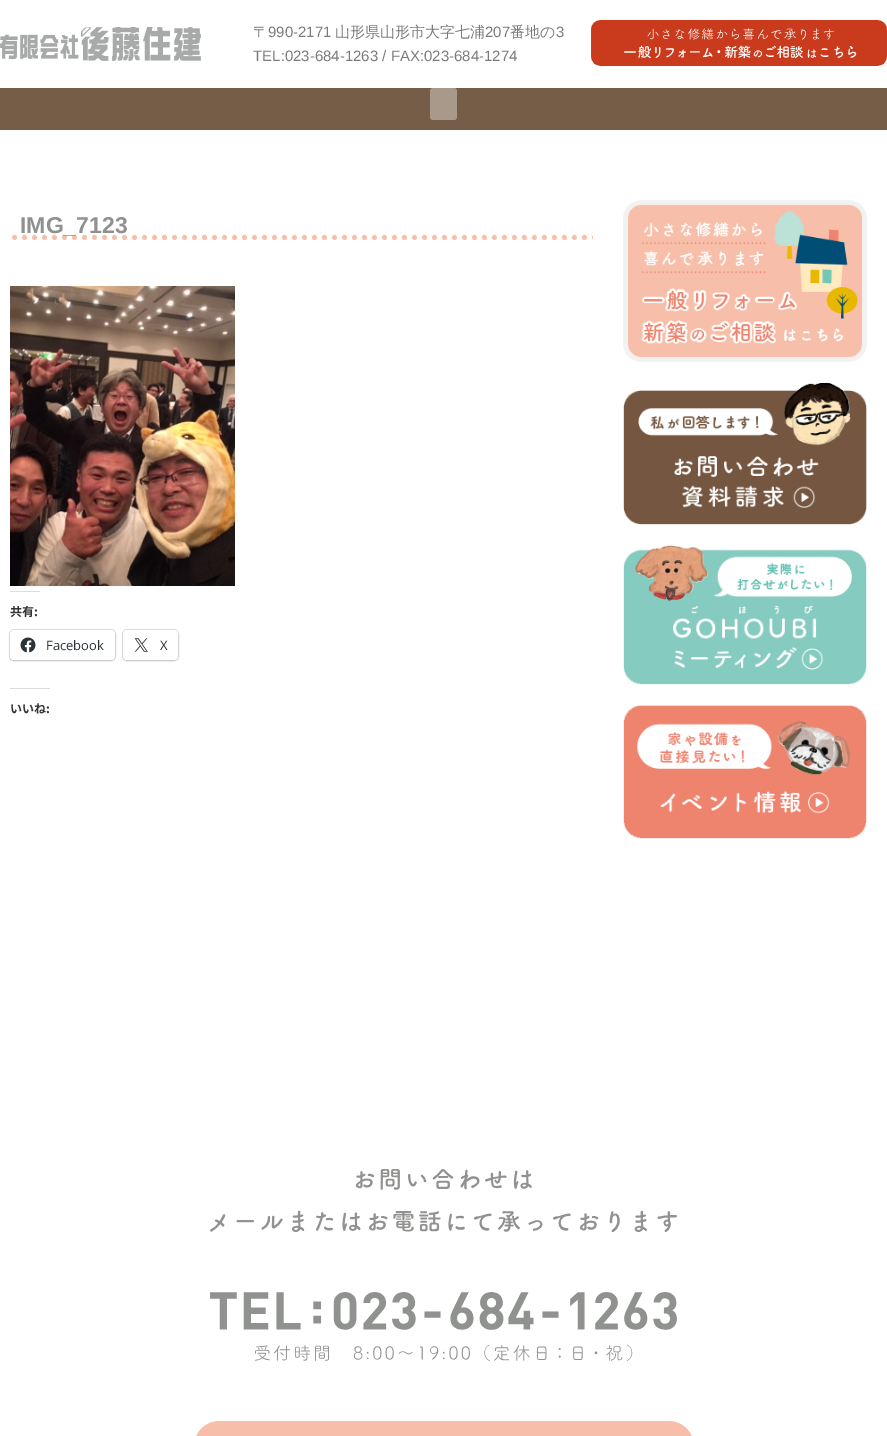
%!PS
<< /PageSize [887 1436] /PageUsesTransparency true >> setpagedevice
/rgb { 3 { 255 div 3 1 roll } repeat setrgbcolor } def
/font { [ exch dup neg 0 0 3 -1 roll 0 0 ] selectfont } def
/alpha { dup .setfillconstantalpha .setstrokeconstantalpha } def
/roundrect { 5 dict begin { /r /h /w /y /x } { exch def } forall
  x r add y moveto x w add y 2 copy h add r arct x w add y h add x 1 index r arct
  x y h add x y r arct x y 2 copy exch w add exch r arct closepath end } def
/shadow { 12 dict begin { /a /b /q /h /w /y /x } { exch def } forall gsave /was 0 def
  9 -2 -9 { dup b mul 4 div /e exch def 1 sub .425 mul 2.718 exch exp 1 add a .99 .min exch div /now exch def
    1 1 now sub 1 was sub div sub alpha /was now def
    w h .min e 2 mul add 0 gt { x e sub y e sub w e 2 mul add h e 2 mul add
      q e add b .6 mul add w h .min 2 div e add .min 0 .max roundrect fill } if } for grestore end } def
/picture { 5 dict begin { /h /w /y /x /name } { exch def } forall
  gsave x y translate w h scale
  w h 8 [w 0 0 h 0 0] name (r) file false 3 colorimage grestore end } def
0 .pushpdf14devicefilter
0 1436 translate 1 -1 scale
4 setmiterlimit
255 255 255 rgb
0 0 887 1436 rectfill
(img/1.rgb) 0 27 201 34 picture
(img/2.rgb) 591 20 296 46 picture
118 93 71 rgb
0 88 887 42 rectfill
169 153 139 rgb
430 88 27 32 3 roundrect fill
(img/3.rgb) 12 234 581 6 picture
(img/4.rgb) 10 286 225 300 picture
220 220 222 rgb
10 591 30 1 rectfill
224 224 224 rgb
9.5 629.5 106 31 4.5 roundrect stroke
0 0 0 rgb
10 631 105 30 4 1 0.12 shadow
255 255 255 rgb
10 630 105 30 4 roundrect fill
(img/5.rgb) 20 637 16 16 picture
224 224 224 rgb
122.5 629.5 56 31 4.5 roundrect stroke
0 0 0 rgb
123 631 55 30 4 1 0.12 shadow
255 255 255 rgb
123 630 55 30 4 roundrect fill
(img/6.rgb) 134 638 14 14 picture
220 220 222 rgb
10 688 40 1 rectfill
(img/7.rgb) 623 200 244 162 picture
(img/8.rgb) 623 382 244 143 picture
(img/9.rgb) 623 545 244 140 picture
(img/10.rgb) 623 705 244 134 picture
(img/11.rgb) 210 1169 467 63 picture
(img/12.rgb) 210 1292 467 69 picture
(img/13.rgb) 196 1421 496 15 picture
/WenQuanYiZenHei-Medium 15 font
122 122 122 rgb
253 37 moveto (〒) show
/LiberationSans-Regular 15 font
268 37 moveto (990-2171) show
/WenQuanYiZenHei-Medium 15 font
335 37 moveto (山形県山形市大字七浦) show
/LiberationSans-Regular 15 font
485 37 moveto (207) show
/WenQuanYiZenHei-Medium 15 font
510 37 moveto (番地の) show
/LiberationSans-Regular 15 font
556 37 moveto (3) show
253 61 moveto (TEL:023-684-1263 / FAX:023-684-1274) show
/LiberationSans-Bold 23 font
143 145 142 rgb
20 233 moveto (IMG_7123) show
/NotoSansJP-Bold 12 font
51 51 51 rgb
10 616 moveto (共有:) show
/OpenSans-Regular 13 font
44 51 56 rgb
46 650 moveto (Facebook) show
160 650 moveto (X) show
/NotoSansJP-Bold 12 font
51 51 51 rgb
10 713 moveto (いいね:) show
.poppdf14devicefilter showpage
